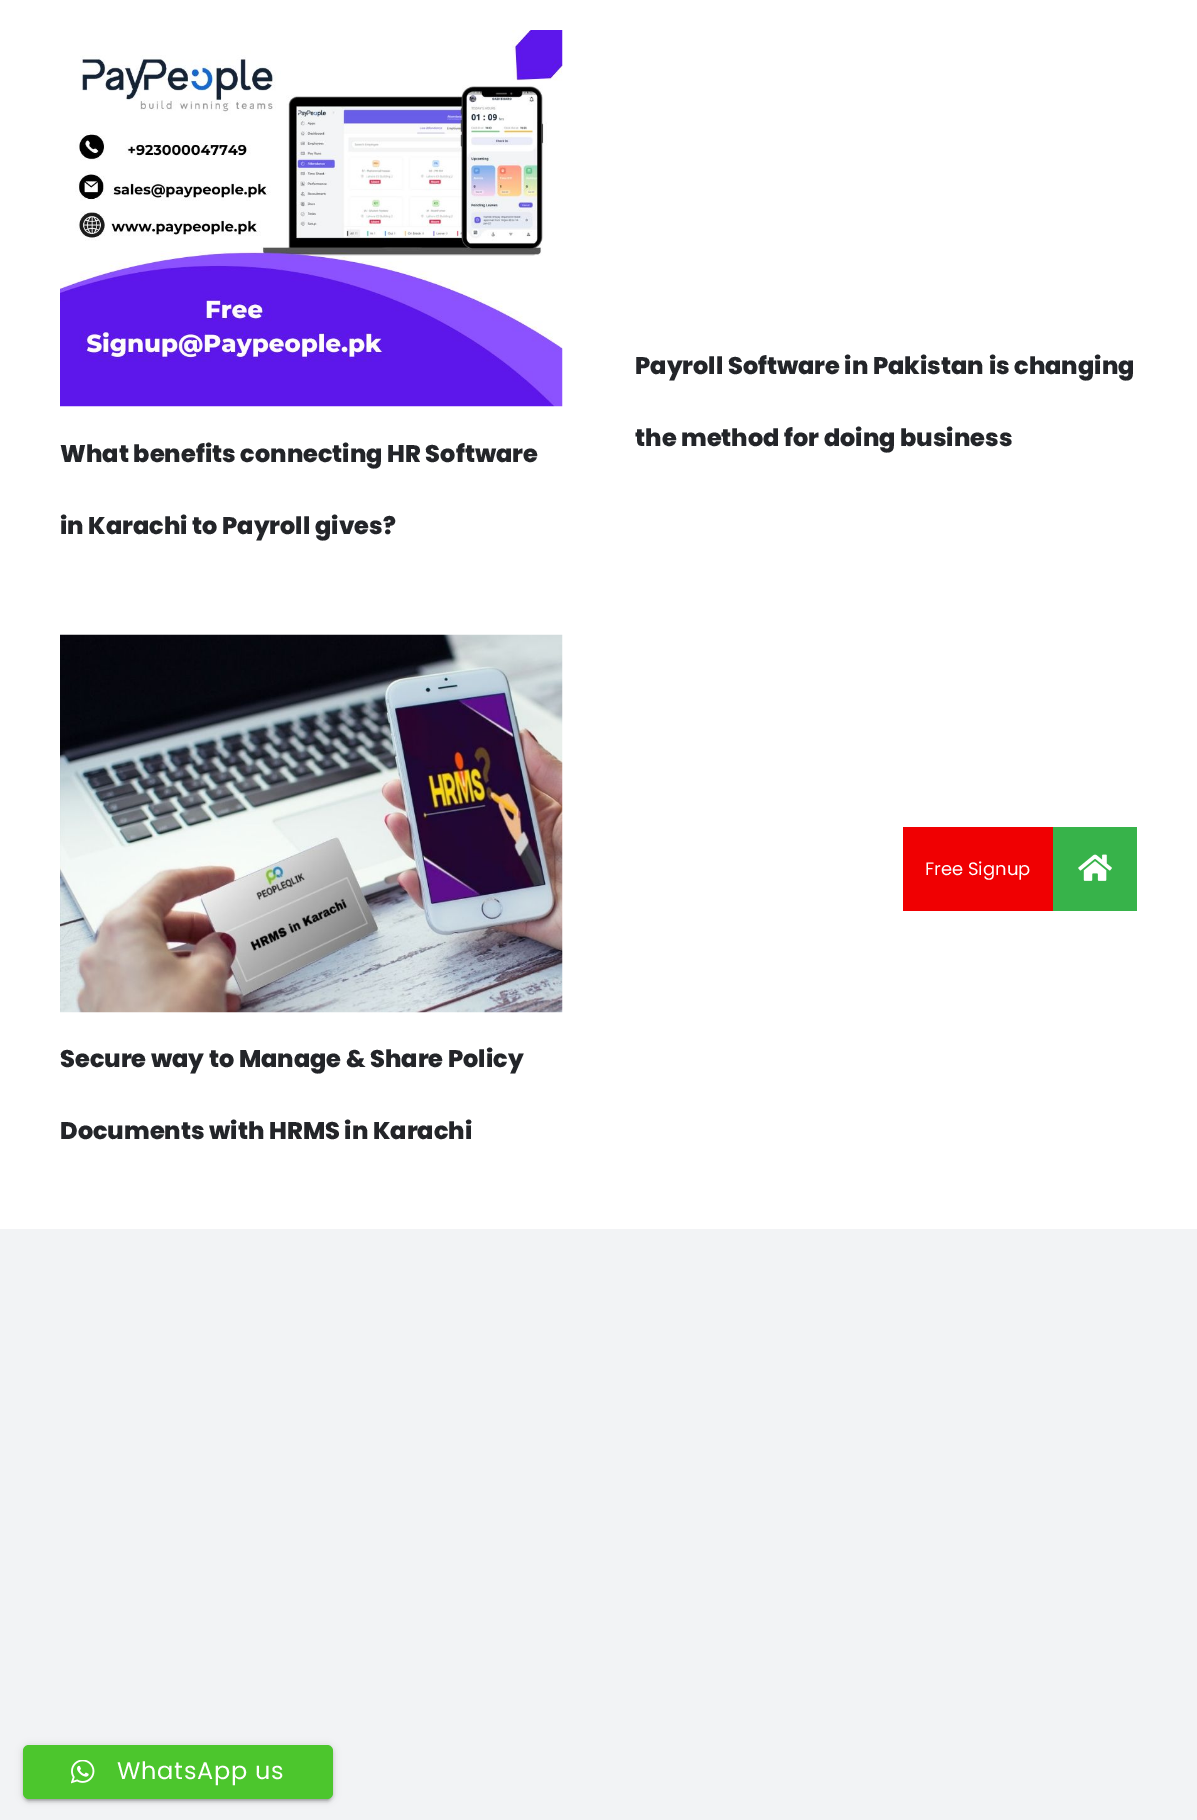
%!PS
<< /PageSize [1197 1820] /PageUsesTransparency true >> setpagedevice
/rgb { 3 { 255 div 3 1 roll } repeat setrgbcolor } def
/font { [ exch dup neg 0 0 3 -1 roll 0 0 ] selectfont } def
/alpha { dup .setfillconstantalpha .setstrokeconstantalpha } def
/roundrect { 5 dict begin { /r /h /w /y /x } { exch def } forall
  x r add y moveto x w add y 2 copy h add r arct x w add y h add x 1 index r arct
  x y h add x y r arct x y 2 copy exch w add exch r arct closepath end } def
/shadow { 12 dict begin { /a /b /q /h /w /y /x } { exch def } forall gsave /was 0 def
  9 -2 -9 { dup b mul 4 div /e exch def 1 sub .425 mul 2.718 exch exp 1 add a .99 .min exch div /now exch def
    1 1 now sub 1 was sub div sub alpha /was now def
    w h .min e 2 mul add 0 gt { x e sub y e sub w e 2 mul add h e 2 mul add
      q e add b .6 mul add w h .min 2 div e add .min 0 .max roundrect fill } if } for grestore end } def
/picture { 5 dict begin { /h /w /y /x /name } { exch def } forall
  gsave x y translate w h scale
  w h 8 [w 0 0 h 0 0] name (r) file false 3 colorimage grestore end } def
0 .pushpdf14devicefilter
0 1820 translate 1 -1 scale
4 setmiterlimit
242 243 245 rgb
0 0 1197 1820 rectfill
255 255 255 rgb
0 0 1197 1229 rectfill
(img/1.rgb) 60 30 503 377 picture
(img/2.rgb) 60 634 503 379 picture
55 179 74 rgb
1053 827 84 84 rectfill
240 0 2 rgb
903 827 150 84 rectfill
(img/3.rgb) 1078 854 34 27 picture
0 0 0 rgb
26 1752 304 48 3 1 0.2 shadow
23 1746 310 54 6 4 0.12 shadow
23 1748 310 54 6 1.5 0.14 shadow
76 198 45 rgb
23 1745 310 54 6 roundrect fill
(img/4.rgb) 71 1760 24 24 picture
/Poppins-ExtraBold 24 font
35 37 41 rgb
[
  [(Payroll Software in Pakistan is changing) 635 374]
  [(the method for doing business) 635 446]
  [(What benefits connecting HR Software) 60 462]
  [(in Karachi to Payroll gives?) 60 534]
  [(Secure way to Manage & Share Policy) 60 1067]
  [(Documents with HRMS in Karachi) 60 1139]
] { aload pop moveto show } forall
/Poppins-Regular 18 font
255 255 255 rgb
925 875 moveto (Free Signup) show
/Poppins-Regular 24 font
117 1779 moveto 0.75 0 (WhatsApp us) ashow
.poppdf14devicefilter showpage
